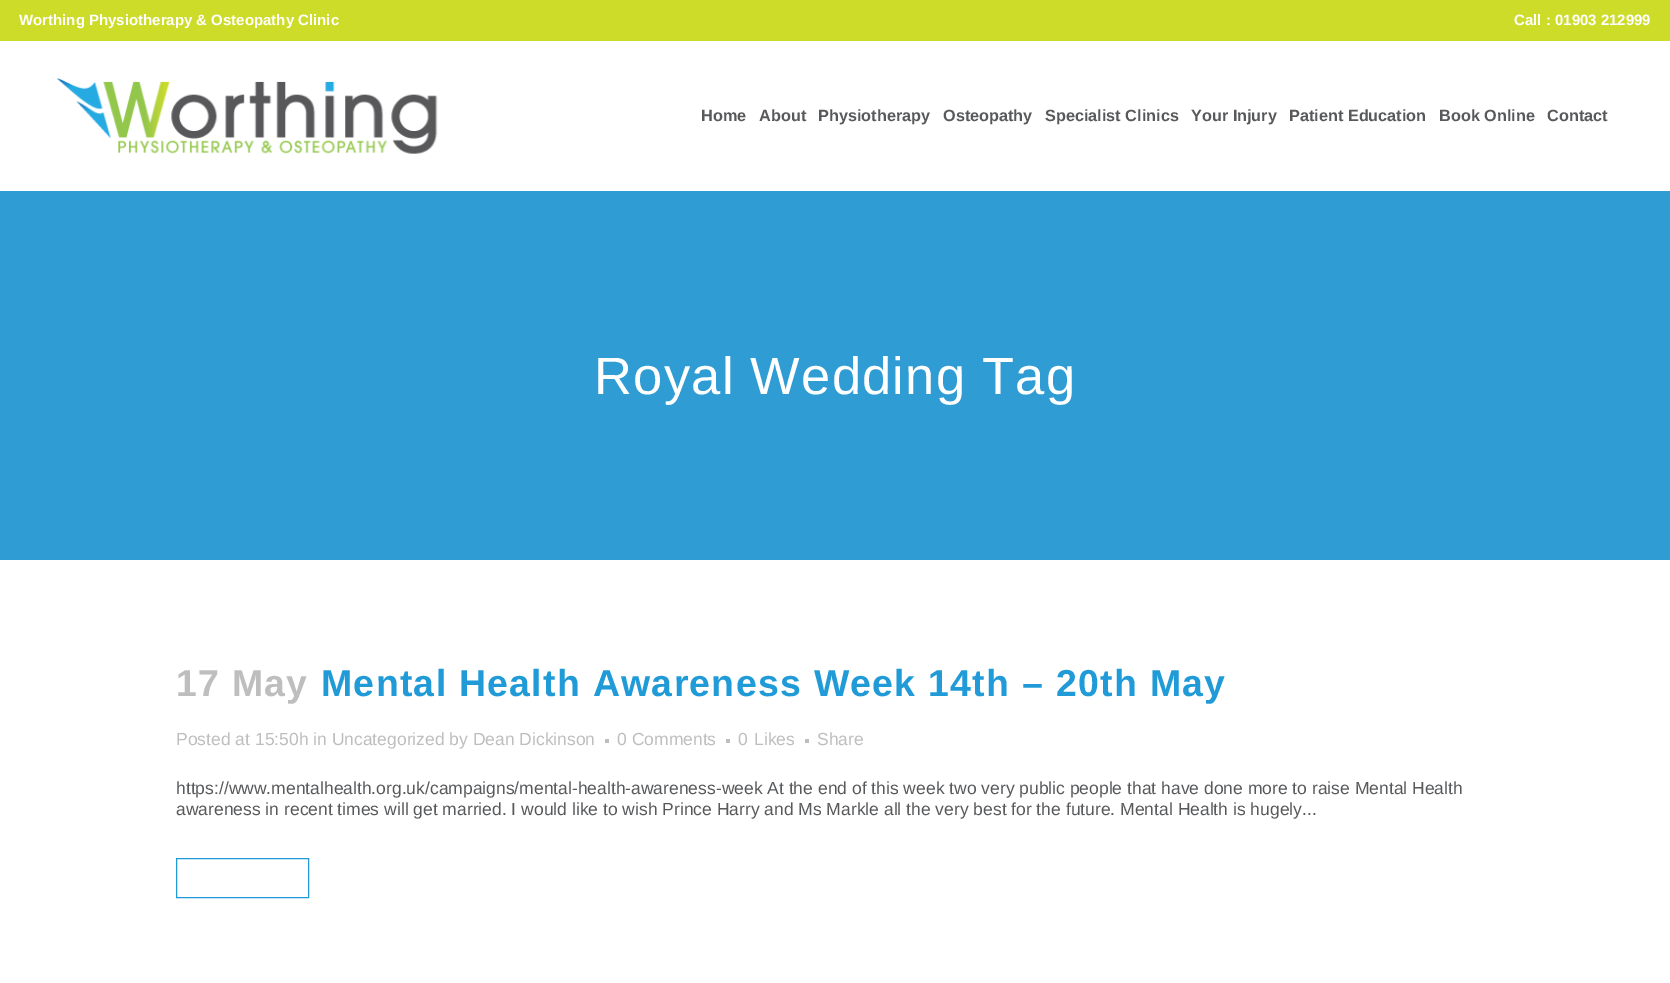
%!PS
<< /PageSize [1670 983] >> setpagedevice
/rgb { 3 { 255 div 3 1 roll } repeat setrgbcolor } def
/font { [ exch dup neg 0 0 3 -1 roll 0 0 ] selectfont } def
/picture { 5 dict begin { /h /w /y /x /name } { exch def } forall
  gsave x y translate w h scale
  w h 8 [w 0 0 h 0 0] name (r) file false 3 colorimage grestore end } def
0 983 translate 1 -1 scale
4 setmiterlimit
255 255 255 rgb
0 0 1670 983 rectfill
205 220 41 rgb
0 0 1670 41 rectfill
(img/1.rgb) 57 78 381 76 picture
[
  [0 191 1670 369 47 156 212]
  [605 739 4 4 190 190 190]
  [726 739 4 4 190 190 190]
  [805 739 4 4 190 190 190]
] { aload pop rgb rectfill } forall
32 155 215 rgb
176.5 858.5 132 39 rectstroke
/LiberationSans-Bold 15 font
255 255 255 rgb
19 25 moveto (Worthing Physiotherapy & Osteopathy Clinic) show
1514 25 moveto (Call : 01903 212999) show
/LiberationSans-Bold 16.25 font
88 89 91 rgb
[
  [(Home) 701 121]
  [(About) 759 121]
  [(Physiotherapy) 818 121]
  [(Osteopathy) 943 121]
  [(Specialist Clinics) 1045 121]
  [(Your Injury) 1191 121]
  [(Patient Education) 1289 121]
  [(Book Online) 1439 121]
  [(Contact) 1547 121]
] { aload pop moveto show } forall
/LiberationSans-Regular 52.5 font
255 255 255 rgb
594 394 moveto 1.25 0 (Royal Wedding Tag) ashow
/LiberationSans-Bold 37.5 font
190 190 190 rgb
176 696 moveto 1.25 0 (17 May) ashow
32 155 215 rgb
321 696 moveto 1.25 0 (Mental Health Awareness Week 14th – 20th May) ashow
/LiberationSans-Regular 17.5 font
190 190 190 rgb
[
  [(Posted at 15:50h in Uncategorized by Dean Dickinson) 176 745]
  [(0 Comments) 617 745]
  [(0) 738 745]
  [(Likes) 754 745]
  [(Share) 817 745]
] { aload pop moveto show } forall
88 89 91 rgb
176 794 moveto (https://www.mentalhealth.org.uk/campaigns/mental-health-awareness-week At the end of this week two very public people that have done more to raise Mental Health) show
176 815 moveto (awareness in recent times will get married. I would like to wish Prince Harry and Ms Markle all the very best for the future. Mental Health is hugely...) show
showpage
